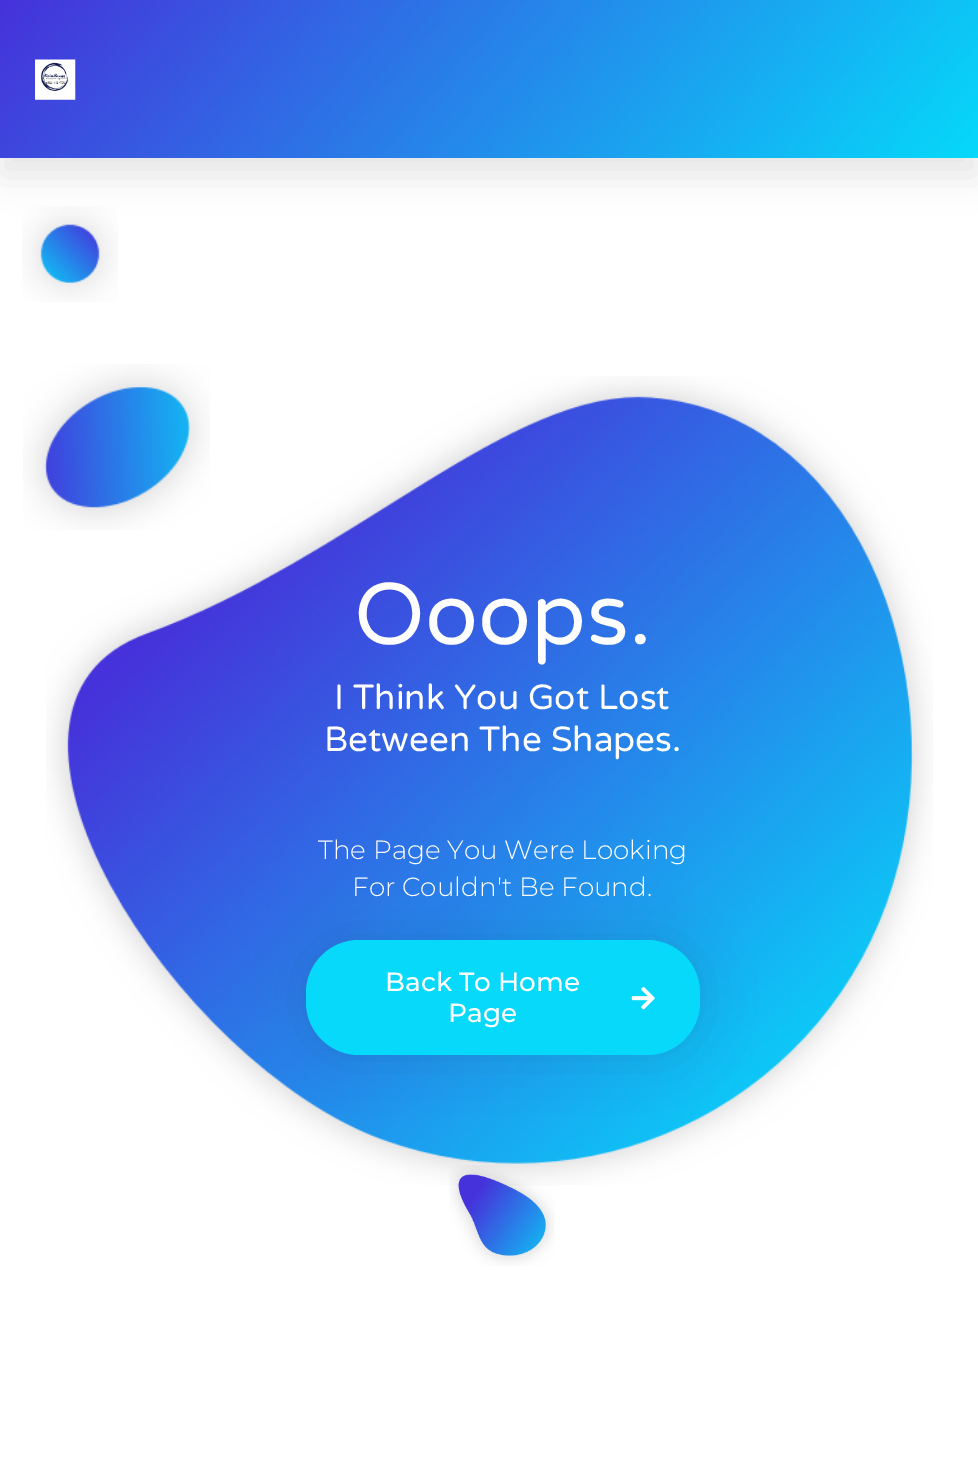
%!PS
<< /PageSize [978 1473] /PageUsesTransparency true >> setpagedevice
/rgb { 3 { 255 div 3 1 roll } repeat setrgbcolor } def
/font { [ exch dup neg 0 0 3 -1 roll 0 0 ] selectfont } def
/alpha { dup .setfillconstantalpha .setstrokeconstantalpha } def
/roundrect { 5 dict begin { /r /h /w /y /x } { exch def } forall
  x r add y moveto x w add y 2 copy h add r arct x w add y h add x 1 index r arct
  x y h add x y r arct x y 2 copy exch w add exch r arct closepath end } def
/shadow { 12 dict begin { /a /b /q /h /w /y /x } { exch def } forall gsave /was 0 def
  9 -2 -9 { dup b mul 4 div /e exch def 1 sub .425 mul 2.718 exch exp 1 add a .99 .min exch div /now exch def
    1 1 now sub 1 was sub div sub alpha /was now def
    w h .min e 2 mul add 0 gt { x e sub y e sub w e 2 mul add h e 2 mul add
      q e add b .6 mul add w h .min 2 div e add .min 0 .max roundrect fill } if } for grestore end } def
/picture { 5 dict begin { /h /w /y /x /name } { exch def } forall
  gsave x y translate w h scale
  w h 8 [w 0 0 h 0 0] name (r) file false 3 colorimage grestore end } def
0 .pushpdf14devicefilter
0 1473 translate 1 -1 scale
4 setmiterlimit
255 255 255 rgb
0 0 978 1473 rectfill
0 0 0 rgb
0 18 978 157 0 17.5 0.1 shadow
gsave 0 0 moveto 978 0 lineto 978 158 lineto 0 158 lineto closepath clip newpath
<< /ShadingType 2 /ColorSpace /DeviceRGB /Coords [163 -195 815 352] /Extend [true true] /Function << /FunctionType 2 /Domain [0 1] /C0 [0.275 0.196 0.855] /C1 [0.024 0.851 0.98] /N 1 >> >> shfill grestore
(img/1.rgb) 35 59 41 41 picture
(img/2.rgb) 22 206 96 96 picture
(img/4.rgb) 46 376 887 809 picture
(img/3.rgb) 23 364 187 166 picture
306 940 394 115 53 26 0.1 shadow
6 217 250 rgb
306 940 394 115 53 roundrect fill
(img/5.rgb) 631 987 24 23 picture
(img/6.rgb) 449 1165 106 101 picture
/VarelaRound-Regular 87.5 font
255 254 254 rgb
354 644 moveto (Ooops.) show
/VarelaRound-Regular 35 font
334 709 moveto (I Think You Got Lost) show
324 751 moveto (Between The Shapes.) show
/Montserrat-Light 26.25 font
318 859 moveto (The Page You Were Looking) show
352 896 moveto (For Couldn't Be Found.) show
/Montserrat-Medium 26.25 font
385 991 moveto (Back To Home) show
448 1022 moveto (Page) show
.poppdf14devicefilter showpage
